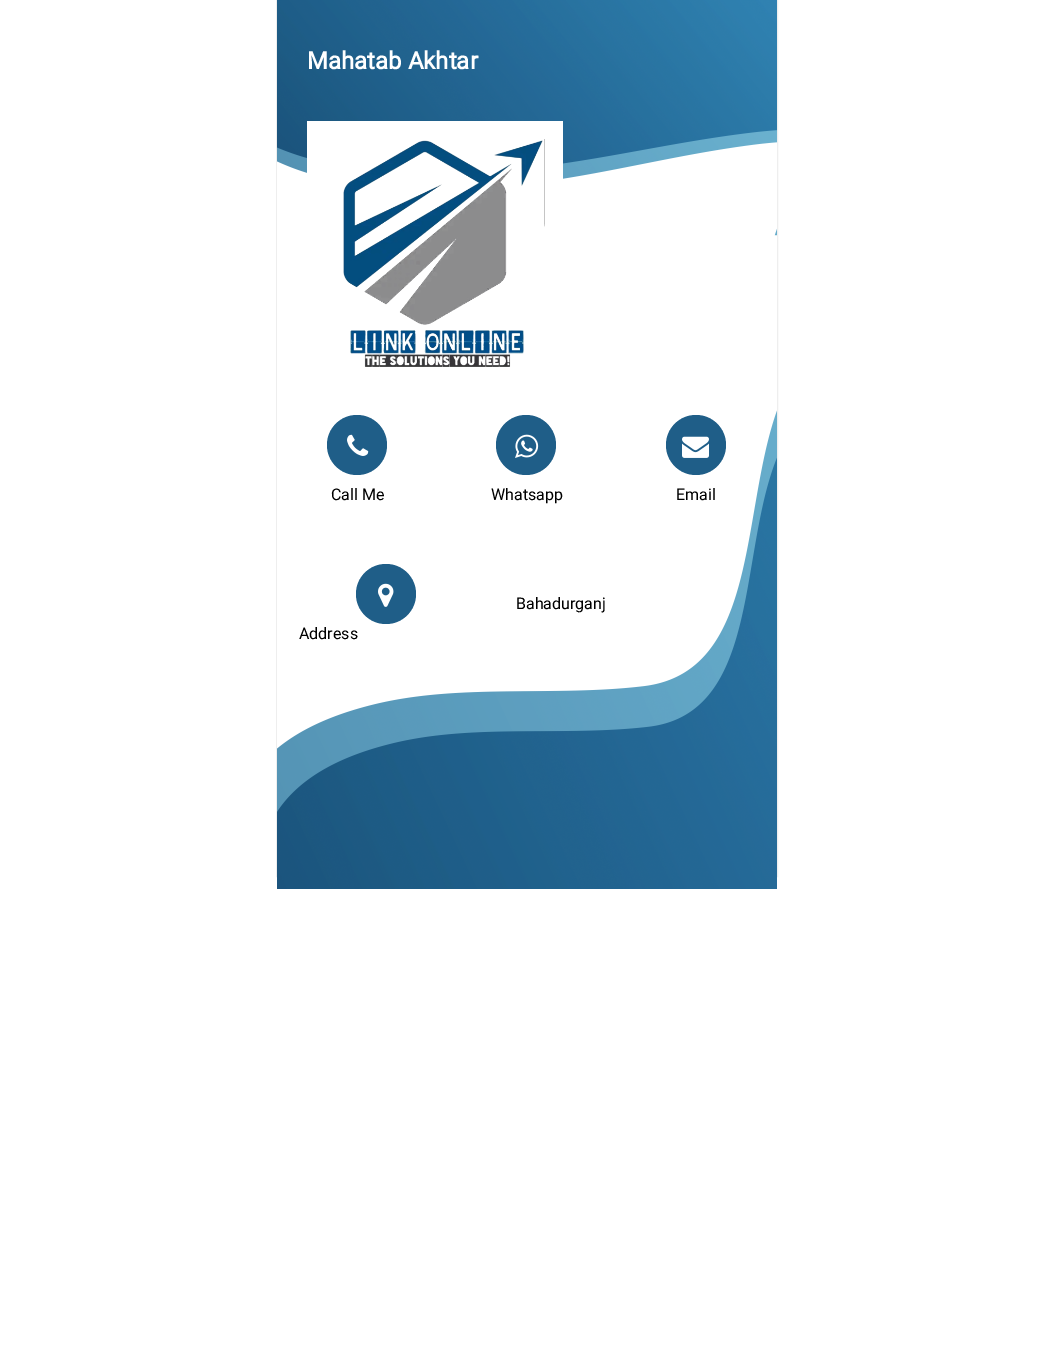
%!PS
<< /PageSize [1053 1346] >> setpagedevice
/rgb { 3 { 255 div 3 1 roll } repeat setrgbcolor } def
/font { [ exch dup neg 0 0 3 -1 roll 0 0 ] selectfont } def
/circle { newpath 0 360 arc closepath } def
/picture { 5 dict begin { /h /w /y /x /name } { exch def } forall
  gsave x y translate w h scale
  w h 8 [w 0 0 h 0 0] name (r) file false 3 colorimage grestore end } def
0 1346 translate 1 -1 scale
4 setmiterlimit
255 255 255 rgb
0 0 1053 1346 rectfill
238 238 238 rgb
276.5 0.5 501 876 rectstroke
(img/1.rgb) 277 0 500 889 picture
255 255 255 rgb
307 121 256 69 rectfill
(img/2.rgb) 343 139 202 228 picture
31 94 136 rgb
357 445 30 circle fill
(img/3.rgb) 347 434 22 22 picture
526 445 30 circle fill
(img/4.rgb) 515 434 24 24 picture
696 445 30 circle fill
(img/5.rgb) 682 436 27 22 picture
386 594 30 circle fill
(img/6.rgb) 378 583 16 24 picture
/Roboto-Bold 24 font
255 255 255 rgb
307 69 moveto (Mahatab Akhtar) show
/Roboto-Regular 16 font
0 0 0 rgb
[
  [(Call Me) 331 500]
  [(Whatsapp) 491 500]
  [(Email) 676 500]
  [(Bahadurganj) 516 609]
  [(Address) 299 639]
] { aload pop moveto show } forall
showpage
